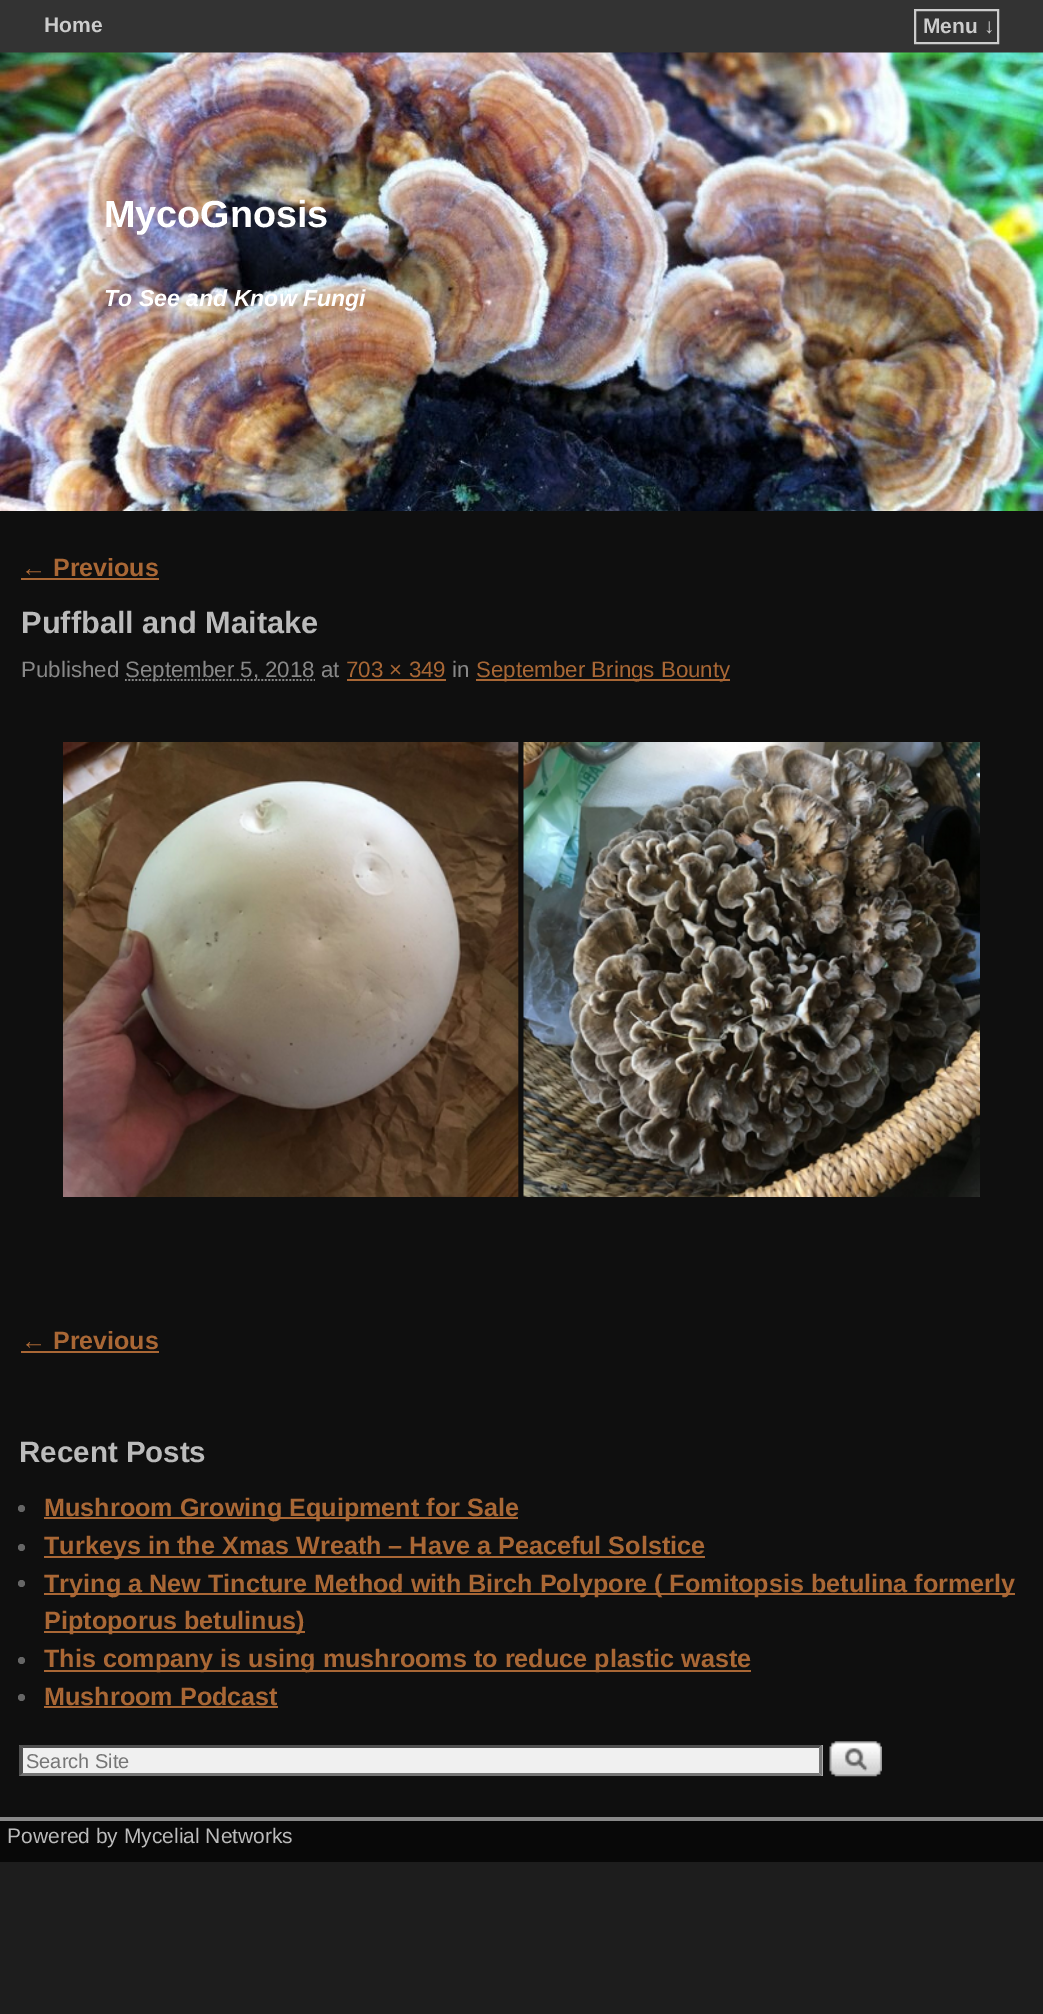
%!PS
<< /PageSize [1043 2014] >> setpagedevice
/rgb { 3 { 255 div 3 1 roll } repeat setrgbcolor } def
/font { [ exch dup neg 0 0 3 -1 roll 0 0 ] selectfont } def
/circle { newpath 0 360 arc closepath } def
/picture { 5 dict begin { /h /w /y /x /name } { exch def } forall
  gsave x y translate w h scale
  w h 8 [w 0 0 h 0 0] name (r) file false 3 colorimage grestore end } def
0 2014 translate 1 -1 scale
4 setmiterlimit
29 29 29 rgb
0 0 1043 2014 rectfill
15 15 15 rgb
0 511 1043 1306 rectfill
51 51 51 rgb
0 0 1043 53 rectfill
204 204 204 rgb
2 setlinewidth
915 10 83 33 rectstroke
(img/1.rgb) 0 52 1043 459 picture
169 103 53 rgb
21 578 138 2 rectfill
136 136 136 rgb
1.8 setlinewidth
[1.75 1.75] 0 setdash
125 680 moveto 315 680 lineto stroke
169 103 53 rgb
347 679 99 2 rectfill
476 679 254 2 rectfill
(img/2.rgb) 63 742 917 455 picture
21 1351 138 2 rectfill
102 102 102 rgb
21.5 1508.5 3.5 circle fill
169 103 53 rgb
44 1517 474 2 rectfill
102 102 102 rgb
21.5 1547.5 3.5 circle fill
169 103 53 rgb
44 1556 661 2 rectfill
102 102 102 rgb
21.5 1583.5 3.5 circle fill
169 103 53 rgb
44 1593 971 2 rectfill
44 1631 261 2 rectfill
102 102 102 rgb
21.5 1660.5 3.5 circle fill
169 103 53 rgb
44 1670 707 2 rectfill
102 102 102 rgb
21.5 1697.5 3.5 circle fill
169 103 53 rgb
44 1706 234 2 rectfill
240 240 240 rgb
19 1745 804 31 rectfill
79 79 79 rgb
19 1745 moveto 822 1745 lineto 819 1748 lineto 23 1748 lineto closepath fill
118 118 118 rgb
822.5 1745 moveto 822.5 1776 lineto 819 1773 lineto 819 1748 lineto closepath fill
822 1776 moveto 19 1776 lineto 23 1773 lineto 819 1773 lineto closepath fill
79 79 79 rgb
19 1776 moveto 19 1745 lineto 23 1748 lineto 23 1773 lineto closepath fill
(img/3.rgb) 829 1741 53 36 picture
8 8 8 rgb
0 1821 1043 41 rectfill
136 136 136 rgb
0 1817 1043 4 rectfill
/LiberationSans-Bold 21 font
204 204 204 rgb
44 32 moveto (Home) show
923 33 moveto (Menu ↓) show
/LiberationSans-Bold 37.75 font
255 255 255 rgb
104 227 moveto (MycoGnosis) show
/LiberationSans-BoldItalic 23.1 font
104 306 moveto (To See and Know Fungi) show
/LiberationSans-Bold 25 font
169 103 53 rgb
21 576 moveto (← Previous) show
/LiberationSans-Bold 30.75 font
187 187 187 rgb
21 633 moveto (Puffball and Maitake) show
/LiberationSans-Regular 22.3 font
136 136 136 rgb
21 677 moveto (Published) show
125 677 moveto (September 5, 2018 at) show
169 103 53 rgb
346 677 moveto (703 × 349) show
136 136 136 rgb
452 677 moveto (in) show
169 103 53 rgb
476 677 moveto (September Brings Bounty) show
/LiberationSans-Bold 25 font
21 1349 moveto (← Previous) show
/LiberationSans-Bold 29.5 font
187 187 187 rgb
19 1462 moveto (Recent Posts) show
/LiberationSans-Bold 25.2 font
169 103 53 rgb
[
  [(Mushroom Growing Equipment for Sale) 44 1516]
  [(Turkeys in the Xmas Wreath – Have a Peaceful Solstice) 44 1554]
  [(Trying a New Tincture Method with Birch Polypore) 44 1592]
  [(\( Fomitopsis betulina formerly) 654 1592]
  [(Piptoporus betulinus\)) 44 1629]
  [(This company is using mushrooms to reduce plastic waste) 44 1667]
  [(Mushroom Podcast) 44 1705]
] { aload pop moveto show } forall
/LiberationSans-Regular 20 font
117 117 117 rgb
26 1768 moveto (Search Site) show
/LiberationSans-Regular 21 font
187 187 187 rgb
7 1843 moveto (Powered by Mycelial Networks) show
showpage
